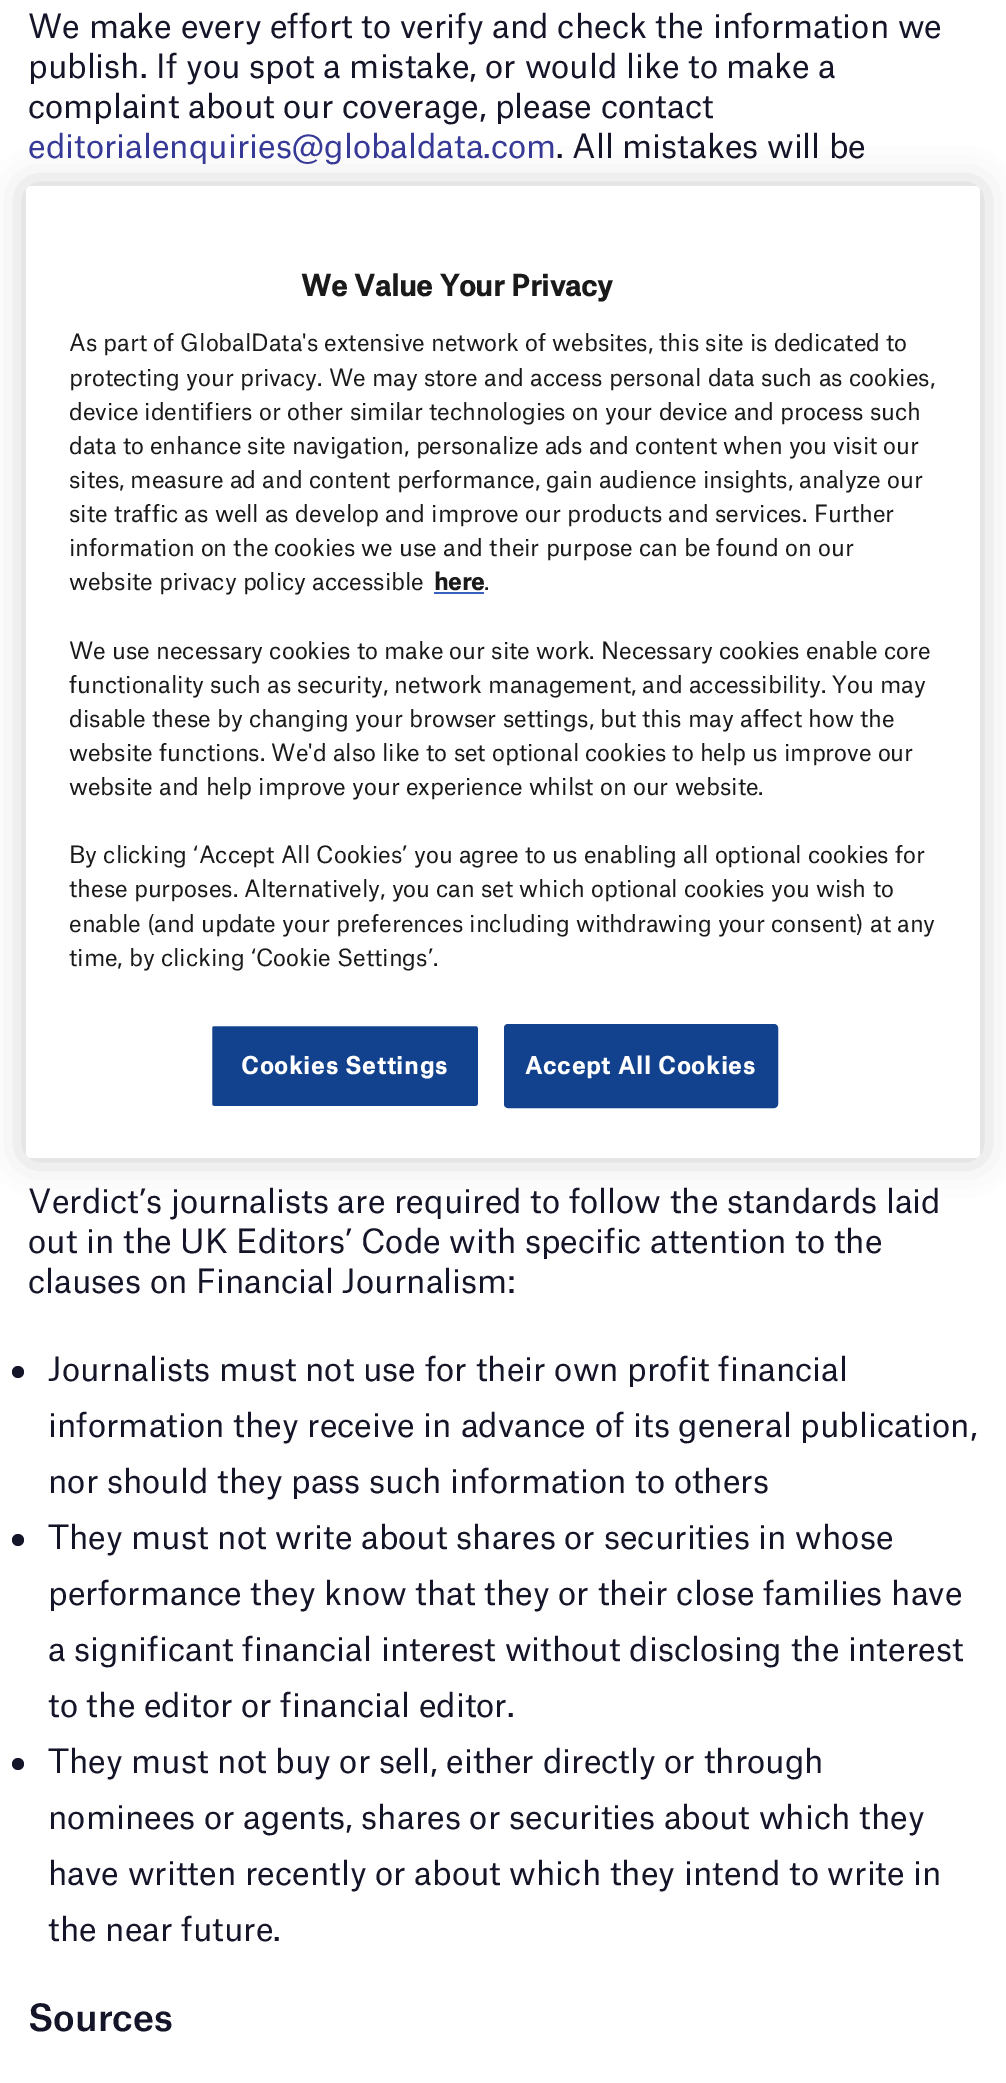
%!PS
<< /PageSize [1006 2083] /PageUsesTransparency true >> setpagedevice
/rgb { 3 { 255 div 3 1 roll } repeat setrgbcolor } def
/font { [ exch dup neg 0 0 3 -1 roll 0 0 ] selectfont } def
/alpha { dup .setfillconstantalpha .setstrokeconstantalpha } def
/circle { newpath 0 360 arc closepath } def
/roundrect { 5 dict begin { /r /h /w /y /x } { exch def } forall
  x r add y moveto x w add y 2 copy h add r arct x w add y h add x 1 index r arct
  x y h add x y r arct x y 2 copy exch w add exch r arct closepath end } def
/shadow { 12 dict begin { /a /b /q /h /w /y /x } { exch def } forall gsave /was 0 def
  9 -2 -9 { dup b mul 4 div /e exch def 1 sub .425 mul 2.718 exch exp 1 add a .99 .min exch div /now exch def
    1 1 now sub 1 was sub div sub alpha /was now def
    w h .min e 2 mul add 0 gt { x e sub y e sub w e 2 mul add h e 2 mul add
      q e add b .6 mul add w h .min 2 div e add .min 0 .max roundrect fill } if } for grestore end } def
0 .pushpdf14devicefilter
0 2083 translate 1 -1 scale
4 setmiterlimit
255 255 255 rgb
0 0 1006 2083 rectfill
21 21 41 rgb
18 1372 6 circle fill
18 1540 6 circle fill
18 1764 6 circle fill
0 0 0 rgb
26 186 954 972 5 18 0.2 shadow
255 255 255 rgb
26 186 954 972 5 roundrect fill
56 96 190 rgb
434 592 50 2 rectfill
18 65 141 rgb
211 1025 268 82 3 roundrect gsave fill grestore
255 255 255 rgb
2 setlinewidth
stroke
18 65 141 rgb
505 1025 272 82 3 roundrect gsave fill grestore
stroke
/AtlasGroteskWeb-Regular 32 font
21 21 41 rgb
[
  [(We make every effort to verify and check the information we) 28 38]
  [(publish. If you spot a mistake, or would like to make a) 28 78]
  [(complaint about our coverage, please contact) 28 118]
] { aload pop moveto show } forall
55 57 151 rgb
28 158 moveto (editorialenquiries@globaldata.com) show
21 21 41 rgb
[
  [(. All mistakes will be) 556 158]
  [(Verdict’s journalists are required to follow the standards laid) 28 1213]
  [(out in the UK Editors’ Code with specific attention to the) 28 1253]
  [(clauses on Financial Journalism:) 28 1293]
  [(Journalists must not use for their own profit financial) 48 1381]
  [(information they receive in advance of its general publication,) 48 1437]
  [(nor should they pass such information to others) 48 1493]
  [(They must not write about shares or securities in whose) 48 1549]
  [(performance they know that they or their close families have) 48 1605]
  [(a significant financial interest without disclosing the interest) 48 1661]
  [(to the editor or financial editor.) 48 1717]
  [(They must not buy or sell, either directly or through) 48 1773]
  [(nominees or agents, shares or securities about which they) 48 1829]
  [(have written recently or about which they intend to write in) 48 1885]
  [(the near future.) 48 1941]
] { aload pop moveto show } forall
/AtlasGroteskWeb-Medium 36 font
28 2031 moveto (Sources) show
/AtlasGroteskWeb-Bold 28 font
26 26 26 rgb
301 296 moveto (We Value Your Privacy) show
/AtlasGroteskWeb-Regular 22.75 font
[
  [(As part of GlobalData's extensive network of websites, this site is dedicated to) 69 351]
  [(protecting your privacy. We may store and access personal data such as cookies,) 69 386]
  [(device identifiers or other similar technologies on your device and process such) 69 420]
  [(data to enhance site navigation, personalize ads and content when you visit our) 69 454]
  [(sites, measure ad and content performance, gain audience insights, analyze our) 69 488]
  [(site traffic as well as develop and improve our products and services.) 69 522]
  [(Further) 814 522]
  [(information on the cookies we use and their purpose can be found on our) 69 556]
  [(website privacy policy accessible) 69 590]
] { aload pop moveto show } forall
/AtlasGroteskWeb-Bold 22.75 font
434 590 moveto (here) show
/AtlasGroteskWeb-Regular 22.75 font
[
  [(.) 484 590]
  [(We use necessary cookies to make our site work.) 69 659]
  [(Necessary cookies enable core) 601 659]
  [(functionality such as security, network management, and accessibility. You may) 69 693]
  [(disable these by changing your browser settings, but this may affect how the) 69 727]
  [(website functions. We'd also like to set optional cookies to help us improve our) 69 761]
  [(website and help improve your experience whilst on our website.) 69 795]
  [(By clicking ‘Accept All Cookies’ you agree to us enabling all optional cookies for) 69 863]
  [(these purposes. Alternatively, you can set which optional cookies you wish to) 69 897]
  [(enable \(and update your preferences including withdrawing your consent\) at any) 69 932]
  [(time, by clicking ‘Cookie Settings’.) 69 966]
] { aload pop moveto show } forall
/AtlasGroteskWeb-Bold 22.75 font
255 255 255 rgb
241 1074 moveto 1.1 0 (Cookies Settings) ashow
525 1074 moveto 1.1 0 (Accept All Cookies) ashow
.poppdf14devicefilter showpage
